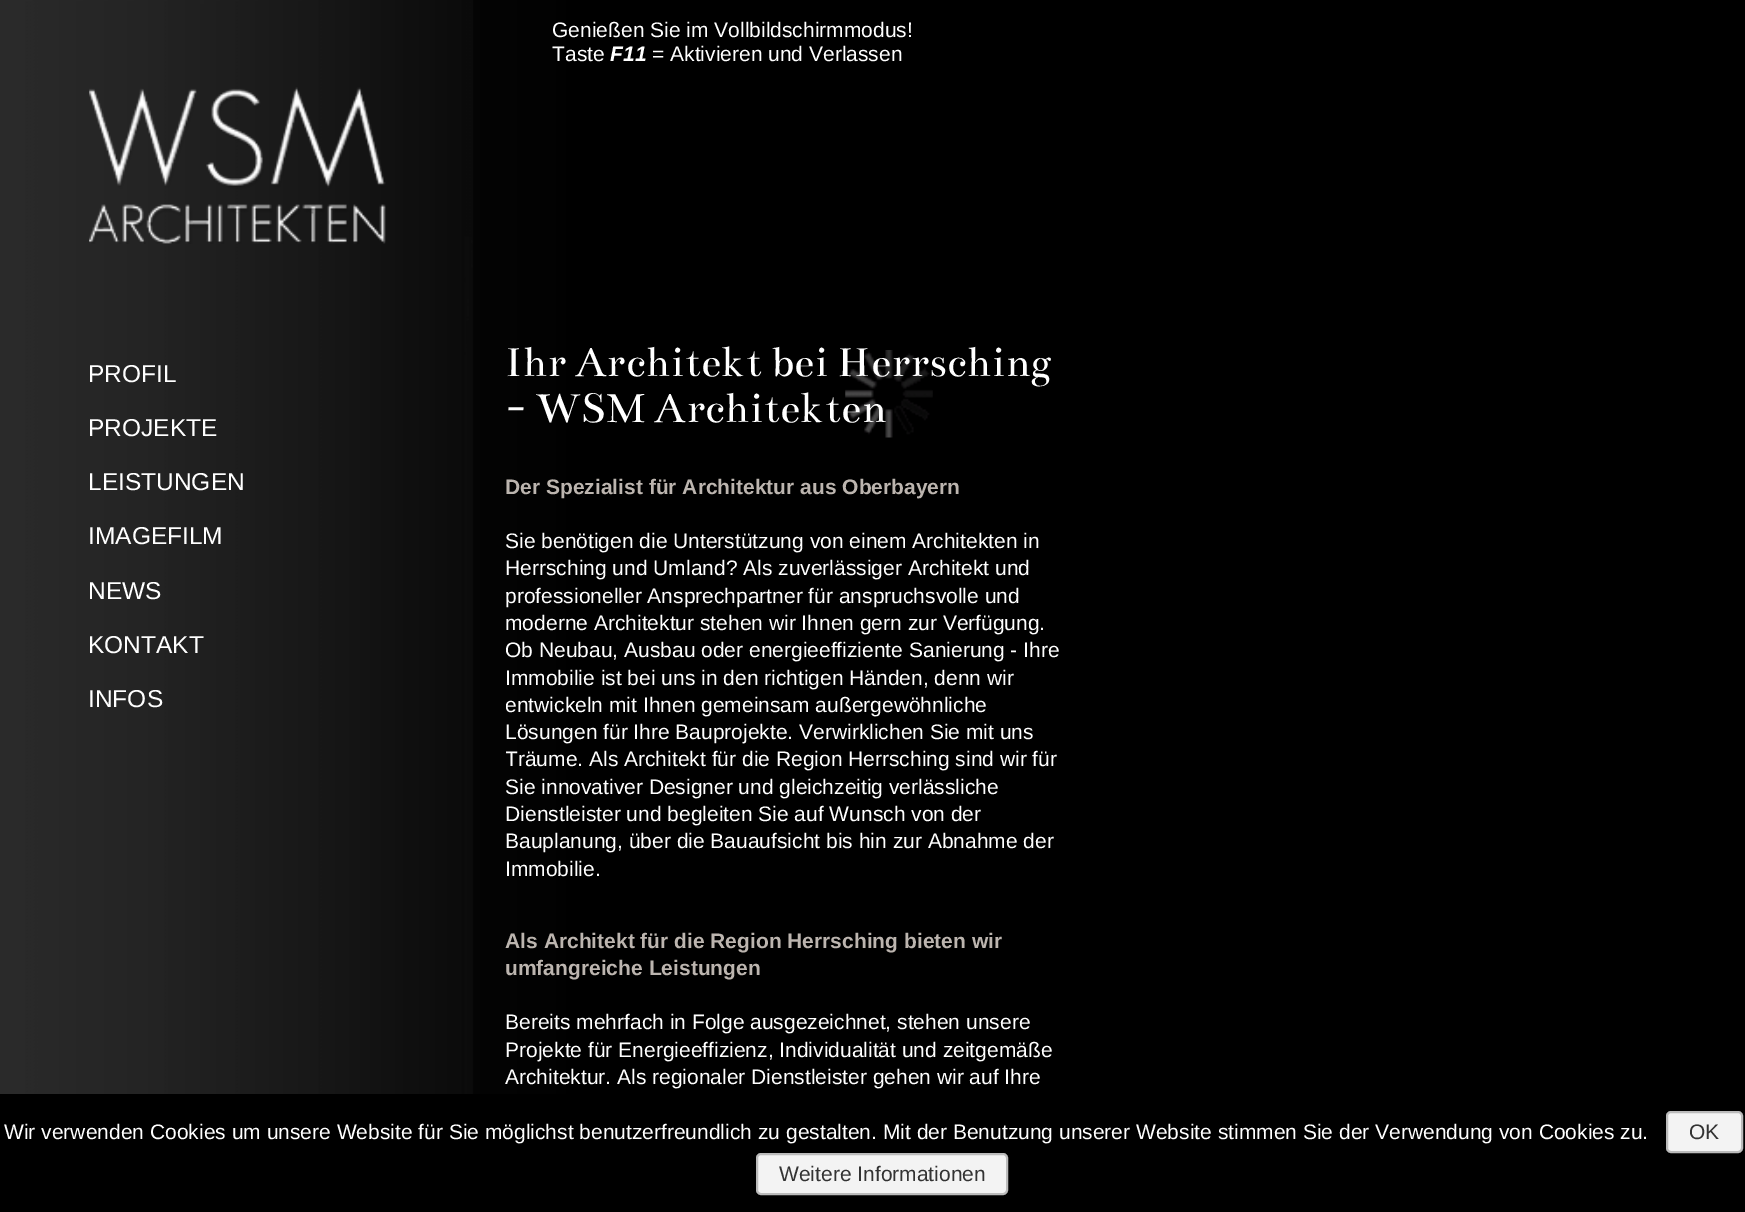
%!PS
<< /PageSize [1745 1212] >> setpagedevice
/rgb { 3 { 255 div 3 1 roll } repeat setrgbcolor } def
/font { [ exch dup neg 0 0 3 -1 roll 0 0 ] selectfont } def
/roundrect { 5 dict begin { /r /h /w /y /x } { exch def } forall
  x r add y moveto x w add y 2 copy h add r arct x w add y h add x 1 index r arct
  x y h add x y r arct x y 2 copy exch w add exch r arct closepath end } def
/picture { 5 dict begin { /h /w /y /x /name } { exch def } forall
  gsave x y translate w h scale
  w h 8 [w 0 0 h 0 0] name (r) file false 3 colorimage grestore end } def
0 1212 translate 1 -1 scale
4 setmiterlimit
0 0 0 rgb
0 0 1745 1212 rectfill
(img/1.rgb) 0 0 566 1094 picture
(img/2.rgb) 89 87 297 157 picture
(img/4.rgb) 845 350 88 88 picture
(img/3.rgb) 473 0 460 1094 picture
243 243 243 rgb
1667 1112 75 40 4 roundrect gsave fill grestore
187 187 187 rgb
2 setlinewidth
stroke
243 243 243 rgb
757 1154 250 40 4 roundrect gsave fill grestore
187 187 187 rgb
stroke
/LiberationSans-Regular 24.5 font
255 255 255 rgb
[
  [(PROFIL) 88 382]
  [(PROJEKTE) 88 436]
  [(LEISTUNGEN) 88 490]
  [(IMAGEFILM) 88 544]
  [(NEWS) 88 599]
  [(KONTAKT) 88 653]
  [(INFOS) 88 707]
] { aload pop moveto show } forall
/LiberationSans-Regular 21 font
552 37 moveto (Genießen Sie im Vollbildschirmmodus!) show
552 61 moveto (Taste) show
/LiberationSans-BoldItalic 21 font
610 61 moveto (F11) show
/LiberationSans-Regular 21 font
652 61 moveto (= Aktivieren und Verlassen) show
/Bentham-Regular 45.5 font
505 376 moveto (Ihr Architekt bei Herrsching) show
505 422 moveto (- WSM Architekten) show
/LiberationSans-Bold 21 font
188 181 175 rgb
505 494 moveto (Der Spezialist für Architektur aus Oberbayern) show
/LiberationSans-Regular 21 font
255 255 255 rgb
[
  [(Sie benötigen die Unterstützung von einem Architekten in) 505 548]
  [(Herrsching und Umland? Als zuverlässiger Architekt und) 505 575]
  [(professioneller Ansprechpartner für anspruchsvolle und) 505 603]
  [(moderne Architektur stehen wir Ihnen gern zur Verfügung.) 505 630]
  [(Ob Neubau, Ausbau oder energieeffiziente Sanierung - Ihre) 505 657]
  [(Immobilie ist bei uns in den richtigen Händen, denn wir) 505 685]
] { aload pop moveto show } forall
gsave
506 341 569 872 rectclip
505 712 moveto (entwickeln mit Ihnen gemeinsam außergewöhnliche) show
grestore
505 739 moveto (Lösungen für Ihre Bauprojekte. Verwirklichen Sie mit uns) show
gsave
506 341 569 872 rectclip
505 766 moveto (Träume. Als Architekt für die Region Herrsching sind wir für) show
grestore
[
  [(Sie innovativer Designer und gleichzeitig verlässliche) 505 794]
  [(Dienstleister und begleiten Sie auf Wunsch von der) 505 821]
  [(Bauplanung, über die Bauaufsicht bis hin zur Abnahme der) 505 848]
  [(Immobilie.) 505 876]
] { aload pop moveto show } forall
/LiberationSans-Bold 21 font
188 181 175 rgb
505 948 moveto (Als Architekt für die Region Herrsching bieten wir) show
505 975 moveto (umfangreiche Leistungen) show
/LiberationSans-Regular 21 font
255 255 255 rgb
[
  [(Bereits mehrfach in Folge ausgezeichnet, stehen unsere) 505 1029]
  [(Projekte für Energieeffizienz, Individualität und zeitgemäße) 505 1057]
  [(Architektur. Als regionaler Dienstleister gehen wir auf Ihre) 505 1084]
  [(Wir verwenden Cookies um unsere Website für Sie möglichst benutzerfreundlich zu gestalten. Mit der Benutzung unserer Website stimmen Sie der Verwendung von Cookies zu.) 4 1139]
] { aload pop moveto show } forall
51 51 51 rgb
1689 1139 moveto (OK) show
779 1181 moveto (Weitere Informationen) show
showpage
